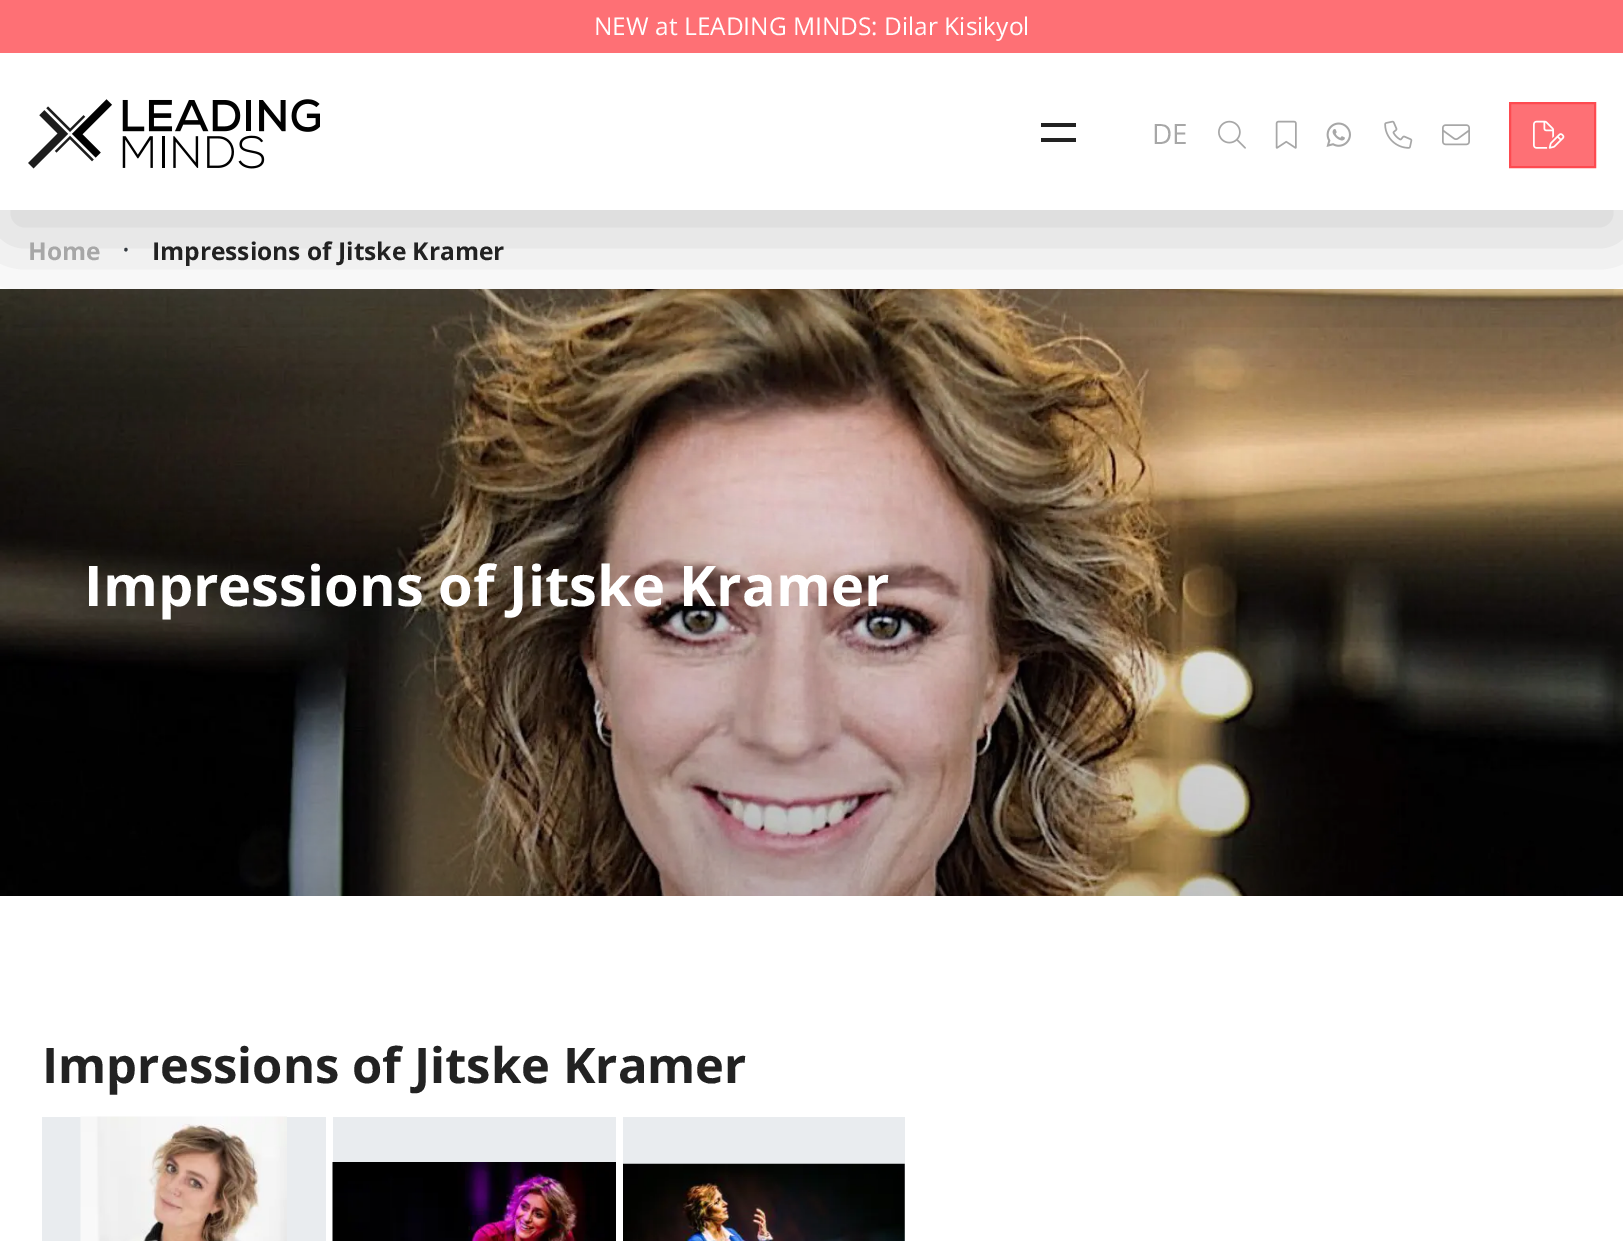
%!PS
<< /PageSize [1623 1241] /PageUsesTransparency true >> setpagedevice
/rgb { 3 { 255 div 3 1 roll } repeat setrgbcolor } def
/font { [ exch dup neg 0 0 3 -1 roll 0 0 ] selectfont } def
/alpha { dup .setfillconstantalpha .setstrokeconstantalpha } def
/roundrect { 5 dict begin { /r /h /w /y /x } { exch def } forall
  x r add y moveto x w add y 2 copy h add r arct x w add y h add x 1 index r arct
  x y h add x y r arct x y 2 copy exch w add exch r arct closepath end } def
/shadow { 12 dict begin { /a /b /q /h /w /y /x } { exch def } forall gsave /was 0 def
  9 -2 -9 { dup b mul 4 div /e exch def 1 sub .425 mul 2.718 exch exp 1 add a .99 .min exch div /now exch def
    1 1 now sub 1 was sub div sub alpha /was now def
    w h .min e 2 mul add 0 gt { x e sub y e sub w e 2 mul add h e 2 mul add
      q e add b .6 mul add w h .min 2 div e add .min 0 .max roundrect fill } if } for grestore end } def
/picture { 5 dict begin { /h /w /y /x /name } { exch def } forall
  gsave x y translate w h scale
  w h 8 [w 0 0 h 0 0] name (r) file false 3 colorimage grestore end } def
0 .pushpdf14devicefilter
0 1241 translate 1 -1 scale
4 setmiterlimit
255 255 255 rgb
0 0 1623 1241 rectfill
(img/8.rgb) 0 289 1623 607 picture
0 0 0 rgb
0 238 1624 79 0 42 0.18 shadow
255 255 255 rgb
0 210 1623 79 rectfill
0 0 0 rgb
0 28 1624 210 0 42 0.18 shadow
255 255 255 rgb
0 53 1623 157 rectfill
254 112 117 rgb
0 0 1623 53 rectfill
(img/1.rgb) 28 99 292 70 picture
34 34 34 rgb
1041 123 35 4 rectfill
1041 138 35 4 rectfill
(img/2.rgb) 1218 120 28 29 picture
(img/3.rgb) 1275 120 22 29 picture
(img/4.rgb) 1326 122 25 25 picture
(img/5.rgb) 1384 120 29 29 picture
(img/6.rgb) 1442 124 28 22 picture
254 112 117 rgb
1510 103 moveto 1595 103 lineto 1595 167 lineto 1510 167 lineto closepath gsave fill grestore
254 74 80 rgb
2 setlinewidth
stroke
(img/7.rgb) 1533 120 32 29 picture
233 236 239 rgb
42 1117 284 124 rectfill
(img/9.rgb) 80 1116 207 125 picture
333 1117 283 45 rectfill
(img/10.rgb) 332 1162 284 79 picture
623 1117 282 124 rectfill
(img/11.rgb) 623 1163 282 78 picture
/OpenSans-Regular 24.5 font
255 255 255 rgb
594 35 moveto (NEW at LEADING MINDS: Dilar Kisikyol) show
/OpenSans-Regular 28 font
167 167 167 rgb
1152 144 moveto (DE) show
/OpenSans-Bold 24.5 font
28 260 moveto (Home) show
/OpenSans-Regular 30 font
52 58 64 rgb
122 260 moveto (·) show
/OpenSans-Bold 24.5 font
34 34 34 rgb
152 260 moveto (Impressions of Jitske Kramer) show
/OpenSans-Bold 56 font
255 255 255 rgb
84 606 moveto (Impressions of Jitske Kramer) show
/OpenSans-Bold 49 font
34 34 34 rgb
42 1083 moveto (Impressions of Jitske Kramer) show
.poppdf14devicefilter showpage
